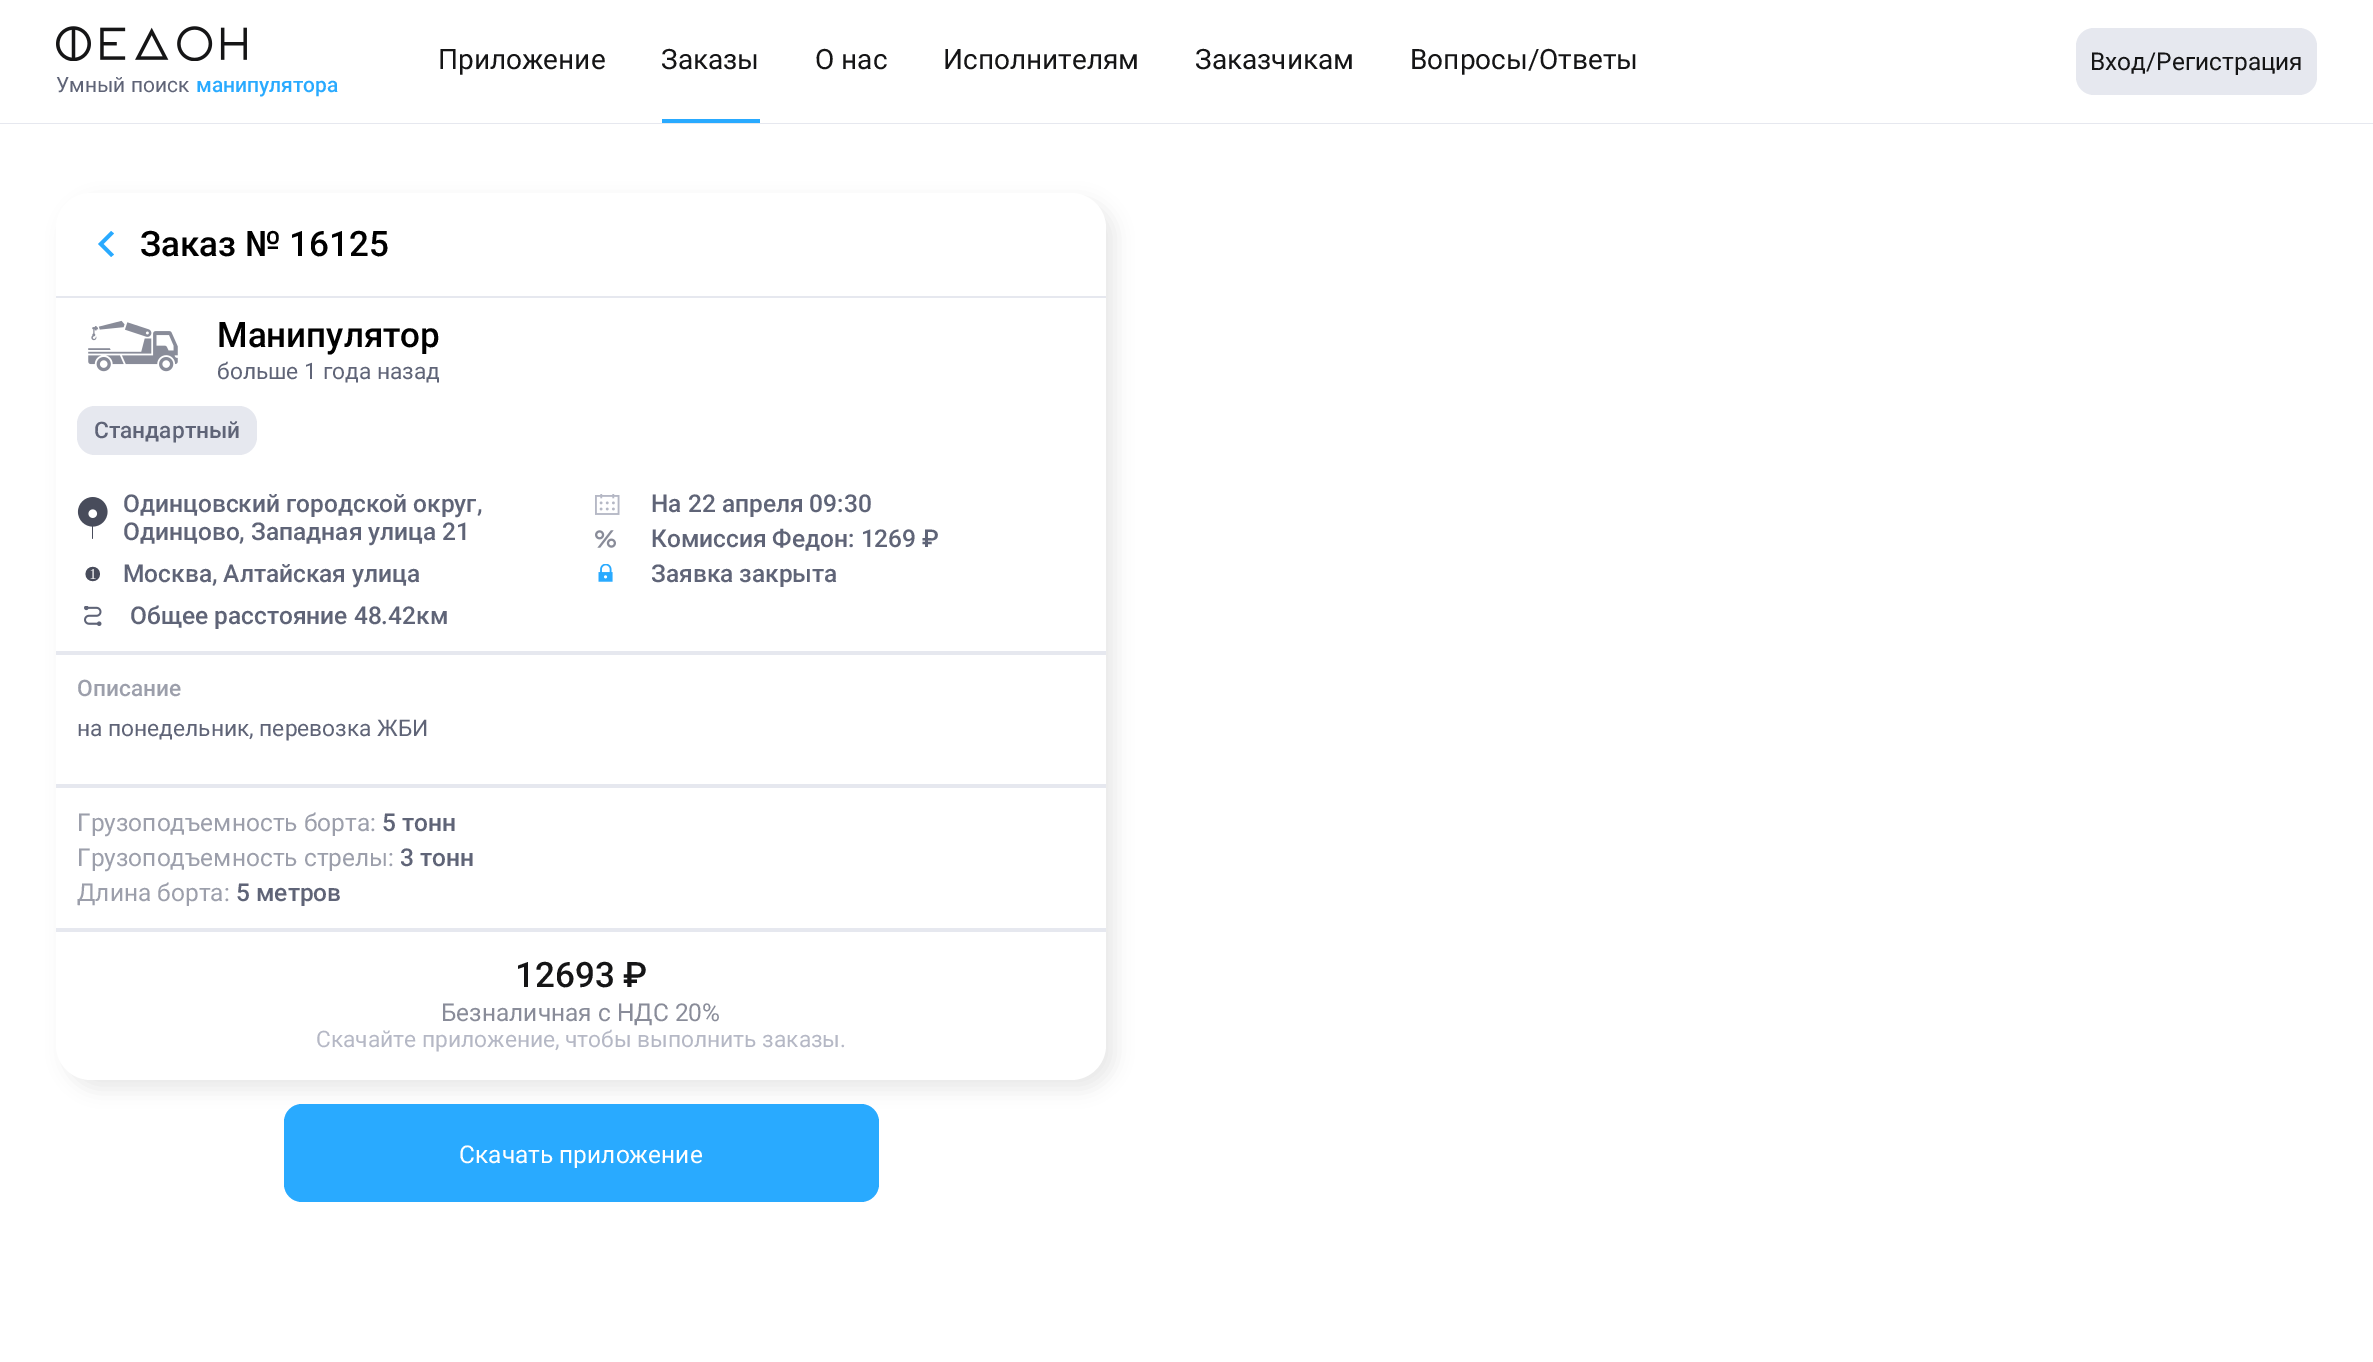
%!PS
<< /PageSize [2373 1362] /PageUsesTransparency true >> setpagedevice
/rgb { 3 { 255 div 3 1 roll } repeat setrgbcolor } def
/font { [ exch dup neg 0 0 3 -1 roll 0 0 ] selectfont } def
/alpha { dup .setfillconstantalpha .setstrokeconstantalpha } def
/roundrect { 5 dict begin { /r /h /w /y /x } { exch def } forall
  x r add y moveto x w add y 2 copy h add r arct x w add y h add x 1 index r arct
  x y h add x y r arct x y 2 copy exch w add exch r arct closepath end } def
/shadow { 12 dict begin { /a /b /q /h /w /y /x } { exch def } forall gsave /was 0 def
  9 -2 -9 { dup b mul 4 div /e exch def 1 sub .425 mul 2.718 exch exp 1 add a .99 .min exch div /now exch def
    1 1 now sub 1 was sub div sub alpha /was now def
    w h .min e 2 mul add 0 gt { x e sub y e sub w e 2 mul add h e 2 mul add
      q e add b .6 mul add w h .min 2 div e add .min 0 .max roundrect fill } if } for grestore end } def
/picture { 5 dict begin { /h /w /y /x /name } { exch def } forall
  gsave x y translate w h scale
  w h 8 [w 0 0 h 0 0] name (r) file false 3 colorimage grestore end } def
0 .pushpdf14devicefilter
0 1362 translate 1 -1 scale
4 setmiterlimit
255 255 255 rgb
0 0 2373 1362 rectfill
230 232 239 rgb
0 123 2373 1 rectfill
41 170 255 rgb
662 119 98 4 rectfill
(img/1.rgb) 56 26 191 35 picture
230 232 239 rgb
2076 28 241 67 18 roundrect fill
21 21 22 rgb
65 201 1050 888 35 9 0.1 shadow
255 255 255 rgb
56 193 1050 887 35 roundrect fill
230 232 239 rgb
56 296 1050 2 rectfill
41 170 255 rgb
114 233.5 moveto 111 231 lineto 98 244 lineto 111 257 lineto 114 254.5 lineto 103.5 244 lineto closepath fill
(img/2.rgb) 88 320 90 52 picture
230 232 239 rgb
77 406 180 49 18 roundrect fill
(img/3.rgb) 77 497 31 42 picture
(img/4.rgb) 85 566 15 16 picture
(img/5.rgb) 84 606 18 20 picture
(img/6.rgb) 595 494 25 21 picture
(img/7.rgb) 595 530 21 18 picture
(img/8.rgb) 598 564 15 18 picture
[
  [56 651 1050 4 230 232 239]
  [56 784 1050 4 230 232 239]
  [56 928 1050 4 230 232 239]
] { aload pop rgb rectfill } forall
41 170 255 rgb
284 1104 595 98 18 roundrect fill
/Roboto-Regular 28 font
21 21 22 rgb
[
  [(Приложение) 438 69]
  [(Заказы) 661 69]
  [(О нас) 815 69]
  [(Исполнителям) 943 69]
  [(Заказчикам) 1195 69]
  [(Вопросы/Ответы) 1410 69]
] { aload pop moveto show } forall
/Roboto-Regular 21 font
95 100 119 rgb
56 92 moveto (Умный поиск) show
/Roboto-Medium 21 font
41 170 255 rgb
196 92 moveto (манипулятора) show
/Roboto-Regular 24.5 font
21 21 22 rgb
2090 70 moveto (Вход/Регистрация) show
/Roboto-Medium 35 font
0 0 0 rgb
140 256 moveto (Заказ № 16125) show
217 347 moveto (Манипулятор) show
/Roboto-Regular 22.75 font
95 100 119 rgb
217 379 moveto (больше 1 года назад) show
/Roboto-Medium 22.75 font
94 438 moveto (Стандартный) show
/Roboto-Medium 24.5 font
[
  [(Одинцовский городской округ,) 123 512]
  [(Одинцово, Западная улица 21) 123 540]
  [(Москва, Алтайская улица) 123 582]
  [(Общее расстояние 48.42км) 130 624]
  [(На 22 апреля 09:30) 651 512]
  [(Комиссия Федон: 1269 ₽) 651 547]
  [(Заявка закрыта) 651 582]
] { aload pop moveto show } forall
/Roboto-Medium 22.75 font
156 159 171 rgb
77 696 moveto (Описание) show
/Roboto-Regular 22.75 font
95 100 119 rgb
77 736 moveto (на понедельник, перевозка ЖБИ) show
/Roboto-Regular 24.5 font
156 159 171 rgb
77 831 moveto (Грузоподъемность борта:) show
/Roboto-Medium 24.5 font
95 100 119 rgb
382 831 moveto (5 тонн) show
/Roboto-Regular 24.5 font
156 159 171 rgb
77 866 moveto (Грузоподъемность стрелы:) show
/Roboto-Medium 24.5 font
95 100 119 rgb
400 866 moveto (3 тонн) show
/Roboto-Regular 24.5 font
156 159 171 rgb
77 901 moveto (Длина борта:) show
/Roboto-Medium 24.5 font
95 100 119 rgb
236 901 moveto (5 метров) show
/Roboto-Medium 35 font
21 21 22 rgb
515 987 moveto (12693 ₽) show
/Roboto-Regular 24.5 font
137 140 153 rgb
441 1021 moveto (Безналичная с НДС 20%) show
/Roboto-Regular 22.75 font
181 184 197 rgb
316 1047 moveto (Скачайте приложение, чтобы выполнить заказы.) show
/Roboto-Regular 24.5 font
255 255 255 rgb
459 1163 moveto (Скачать приложение) show
.poppdf14devicefilter showpage
